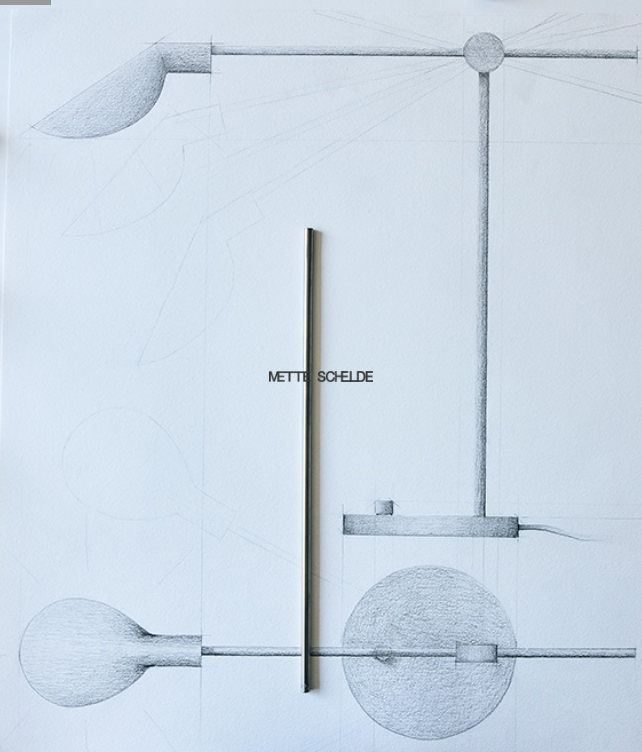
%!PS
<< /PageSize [642 752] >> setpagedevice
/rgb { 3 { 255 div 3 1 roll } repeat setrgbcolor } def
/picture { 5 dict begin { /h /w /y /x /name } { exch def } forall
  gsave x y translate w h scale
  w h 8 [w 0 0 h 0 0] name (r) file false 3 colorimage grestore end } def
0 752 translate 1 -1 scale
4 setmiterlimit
255 255 255 rgb
0 0 642 752 rectfill
(img/1.rgb) 0 0 642 752 picture
(img/2.rgb) 269 371 104 11 picture
153 153 153 rgb
0 0 51 5 rectfill
showpage
